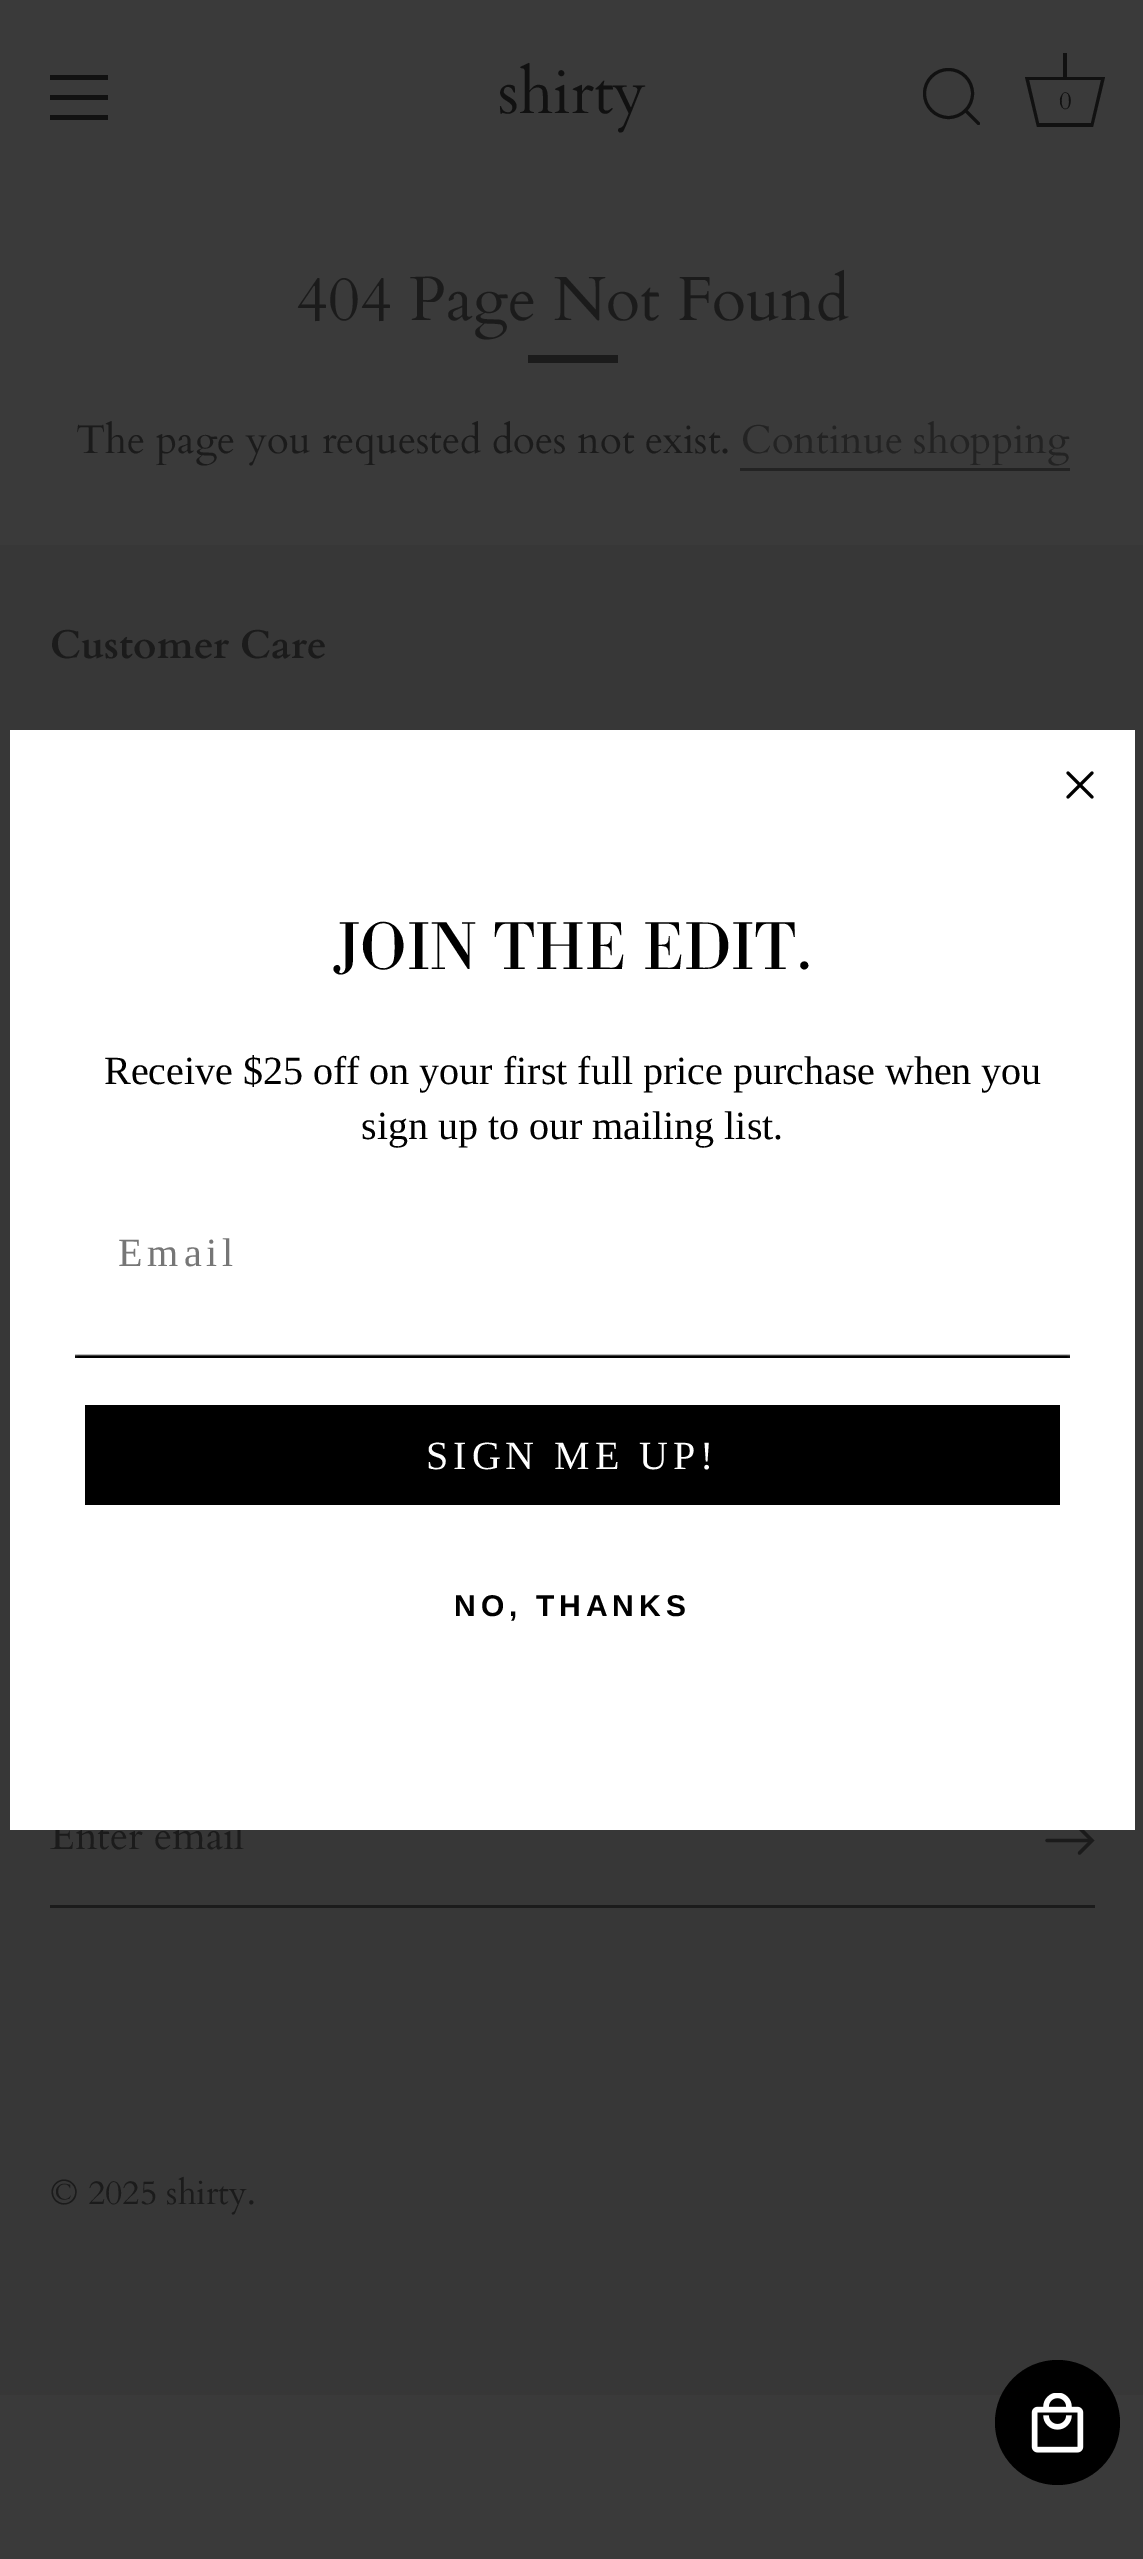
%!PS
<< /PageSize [1143 2559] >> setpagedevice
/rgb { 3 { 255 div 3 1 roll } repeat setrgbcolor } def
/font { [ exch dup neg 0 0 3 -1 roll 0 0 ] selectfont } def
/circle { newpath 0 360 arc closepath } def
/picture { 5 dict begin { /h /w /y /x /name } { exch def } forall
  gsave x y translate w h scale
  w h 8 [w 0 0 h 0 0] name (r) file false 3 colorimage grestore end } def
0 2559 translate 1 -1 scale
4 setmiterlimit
58 58 58 rgb
0 0 1143 2559 rectfill
[
  [50 75 58 5 17 17 17]
  [50 95 58 5 17 17 17]
  [50 115 58 5 17 17 17]
] { aload pop rgb rectfill } forall
3 setlinewidth
948.5 93.5 24 circle stroke
1 setlinecap
1 setlinejoin
978.5 123.5 moveto 965.5 110.5 lineto stroke
1063 53 4 24 rectfill
1101 80 moveto 1091 123 lineto 1039 123 lineto 1029 80 lineto 1101 80 lineto 1105 77 moveto 1025 77 lineto 1037 127 lineto 1093 127 lineto closepath fill
[
  [528 355 90 8 27 27 27]
  [740 468 330 3 35 35 35]
  [0 545 1143 1850 55 55 55]
  [50 1905 1045 3 27 27 27]
] { aload pop rgb rectfill } forall
3.2 setlinewidth
0 setlinejoin
1079.5 1853 moveto 1092 1840.5 lineto 1079.5 1828 lineto stroke
1 setlinejoin
1090.5 1840.5 moveto 1047 1840.5 lineto stroke
0 0 0 rgb
1057.5 2422.5 62.5 circle fill
(img/2.rgb) 1031 2393 53 60 picture
/Cardo-Regular 62.5 font
17 17 17 rgb
498 113 moveto (shirty) show
/Cardo-Regular 25 font
1059 109 moveto (0) show
/Cardo-Regular 62.5 font
27 27 27 rgb
296 320 moveto (404 Page Not Found) show
/Cardo-Regular 40 font
76 453 moveto (The page you requested does not exist.) show
35 35 35 rgb
741 453 moveto (Continue shopping) show
/Cardo-Bold 40 font
27 27 27 rgb
50 658 moveto (Customer Care) show
/Cardo-Regular 40 font
50 1849 moveto (Enter email) show
/Cardo-Regular 34 font
50 2204 moveto (© 2025 shirty.) show
255 255 255 rgb
10 730 1125 1100 rectfill
0 0 0 rgb
3 setlinewidth
1068 773 moveto 1092 797 lineto 1068 797 moveto 1092 773 lineto closepath stroke
/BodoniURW-Regular 70 font
333 969 moveto (JOIN THE EDIT.) show
/LiberationSerif-Regular 40 font
104 1084 moveto (Receive $25 off on your first full price purchase when you) show
361 1139 moveto (sign up to our mailing list.) show
118 118 118 rgb
118 1266 moveto 5 0 (Email) ashow
(img/1.rgb) 75 1354 995 4 picture
0 0 0 rgb
85 1405 975 100 rectfill
255 255 255 rgb
426 1469 moveto 5 0 (SIGN ME UP!) ashow
/LiberationSans-Bold 30 font
0 0 0 rgb
454 1616 moveto 5 0 (NO, THANKS) ashow
showpage
